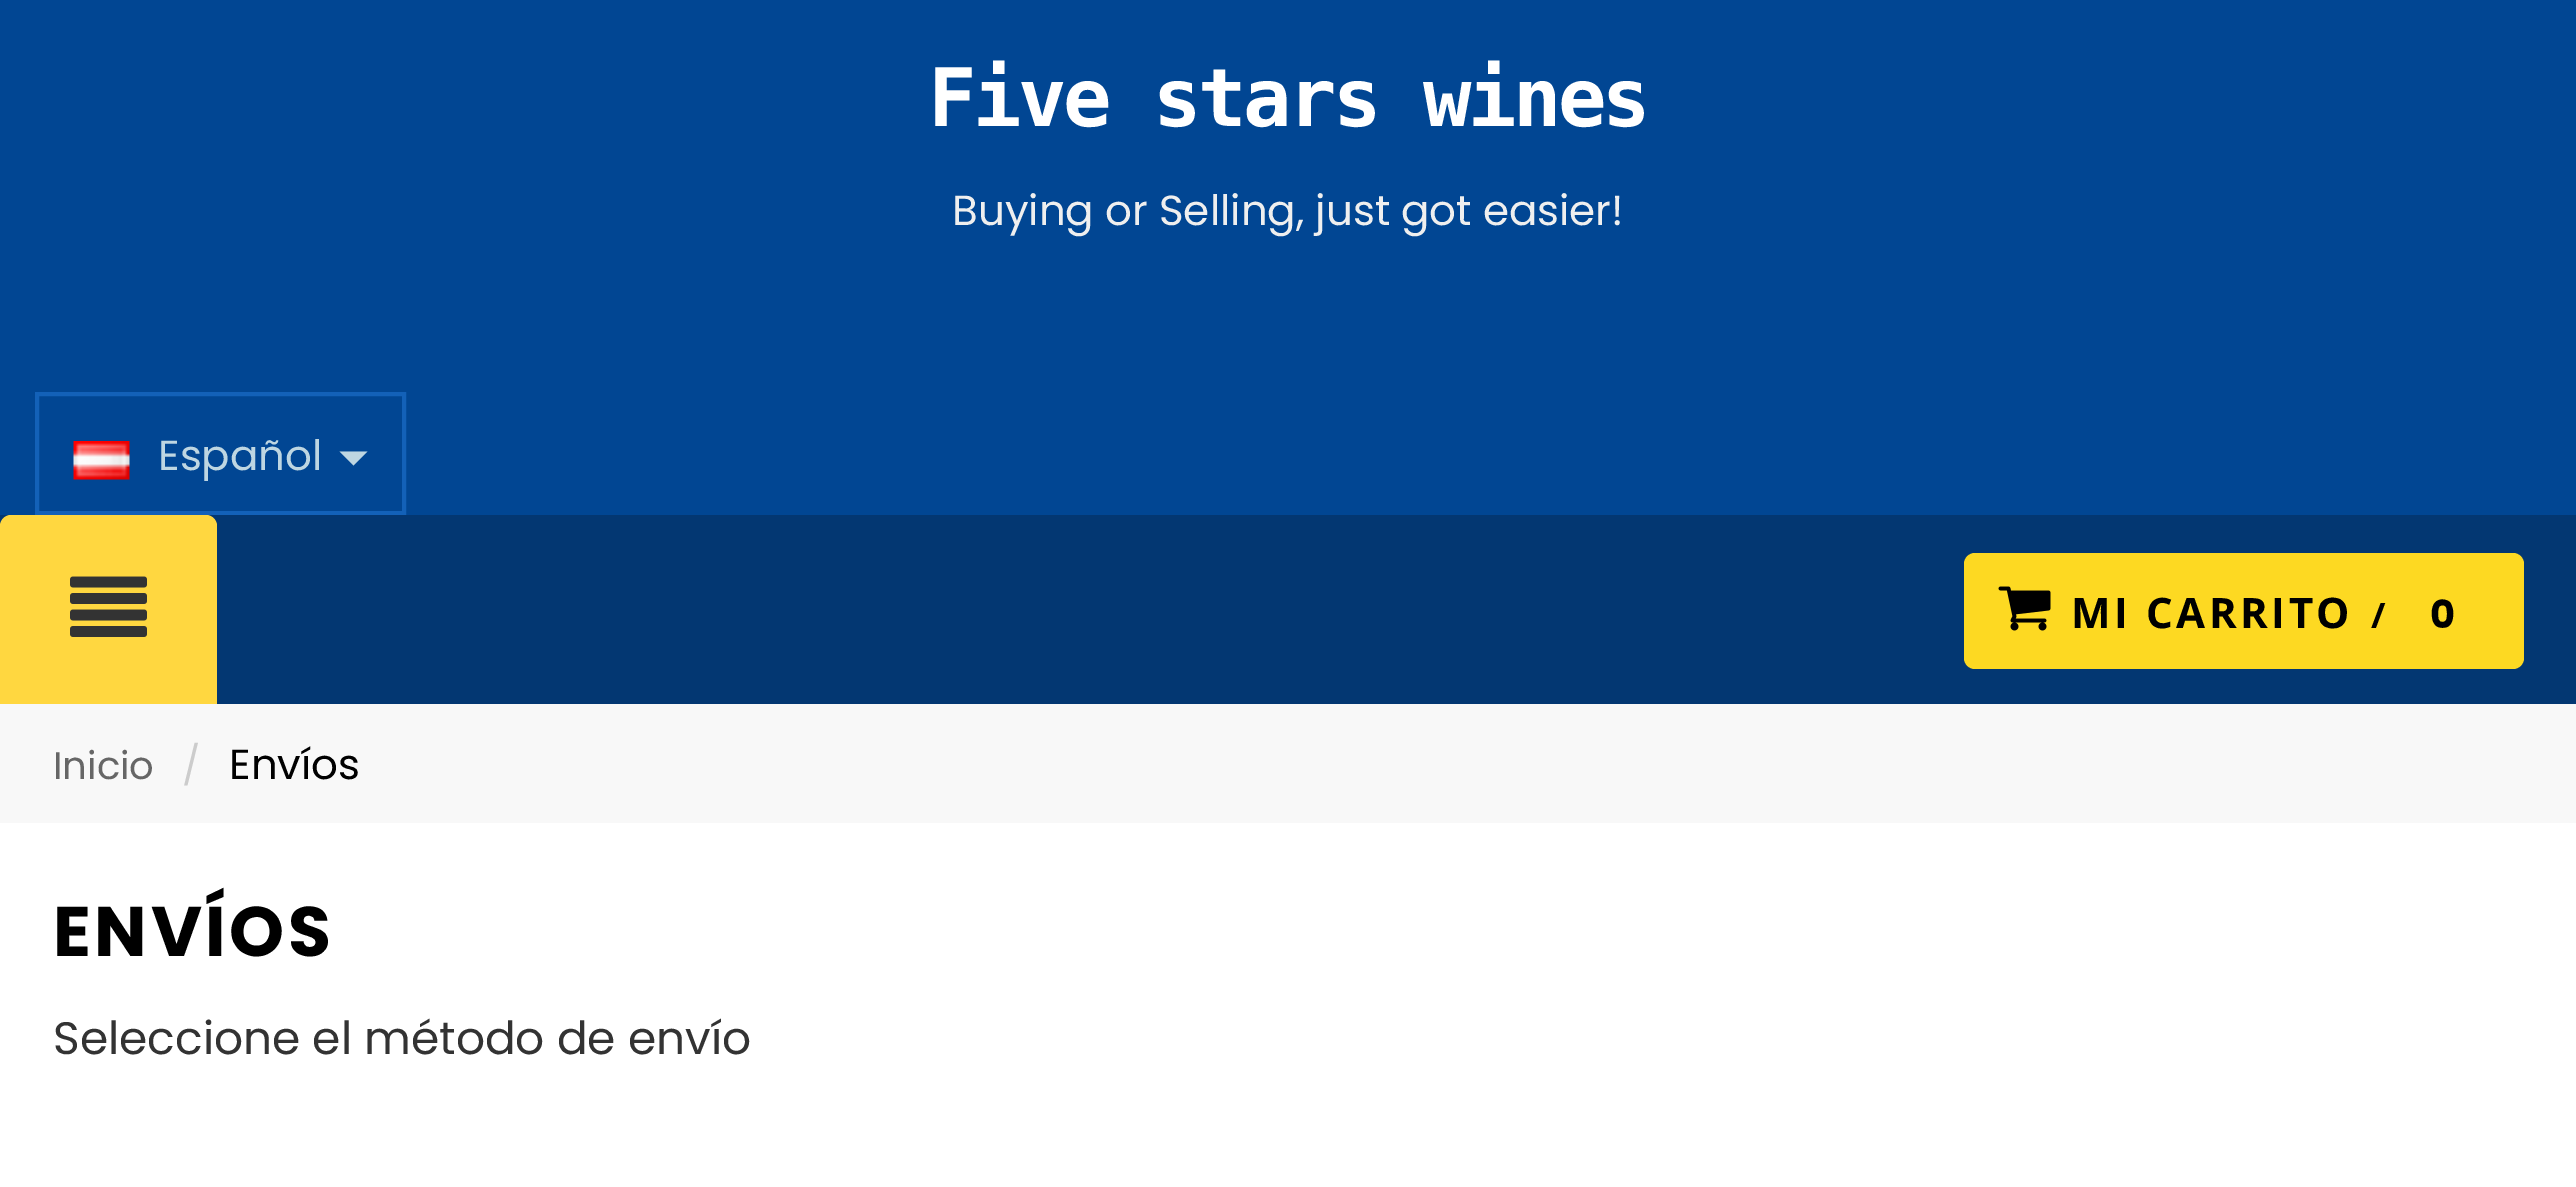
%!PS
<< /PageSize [2576 1187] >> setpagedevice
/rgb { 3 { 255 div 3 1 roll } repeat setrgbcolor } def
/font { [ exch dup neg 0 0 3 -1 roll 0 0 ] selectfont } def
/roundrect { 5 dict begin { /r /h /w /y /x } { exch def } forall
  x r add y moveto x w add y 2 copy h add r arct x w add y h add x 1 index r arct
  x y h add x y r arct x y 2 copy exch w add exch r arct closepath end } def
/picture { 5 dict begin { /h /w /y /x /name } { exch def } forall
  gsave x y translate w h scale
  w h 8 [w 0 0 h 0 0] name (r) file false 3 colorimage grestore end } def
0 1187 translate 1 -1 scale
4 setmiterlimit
255 255 255 rgb
0 0 2576 1187 rectfill
1 70 147 rgb
0 0 2576 515 rectfill
19 97 184 rgb
4 setlinewidth
37 394 367 119 rectstroke
(img/1.rgb) 73 441 57 39 picture
190 214 226 rgb
339.5 451.5 moveto 367.5 451.5 lineto 353.5 465.5 lineto closepath fill
3 55 114 rgb
0 515 2576 189 rectfill
255 215 64 rgb
11 515 moveto 206 515 lineto 212 515 217 520 217 526 curveto 217 704 lineto 0 704 lineto 0 526 lineto 0 520 5 515 11 515 curveto closepath fill
(img/2.rgb) 70 576 77 61 picture
253 217 34 rgb
1964 553 560 116 11 roundrect fill
(img/3.rgb) 1998 586 53 45 picture
248 248 248 rgb
0 704 2576 119 rectfill
/DejaVuSansMono-Bold 80.5 font
255 255 255 rgb
928 126 moveto -3.5 0 (Five stars wines) ashow
/Poppins-Regular 42 font
239 239 239 rgb
952 225 moveto (Buying or Selling, just got easier!) show
190 214 226 rgb
158 470 moveto (Español) show
/OpenSans-Bold 42 font
0 0 0 rgb
2071 628 moveto 3.5 0 (MI CARRITO) ashow
/OpenSans-Bold 35 font
2371 628 moveto 3.5 0 (/) ashow
/Poppins-Bold 38.5 font
2430 628 moveto 3.5 0 (0) ashow
/Poppins-Regular 38.5 font
102 102 102 rgb
53 779 moveto (Inicio) show
204 204 204 rgb
182 779 moveto (/) show
/Poppins-Regular 42 font
0 0 0 rgb
229 779 moveto (Envíos) show
/Poppins-Bold 70 font
53 956 moveto 3.5 0 (ENVÍOS) ashow
/Poppins-Regular 45.5 font
51 51 51 rgb
53 1054 moveto (Seleccione el método de envío) show
showpage
